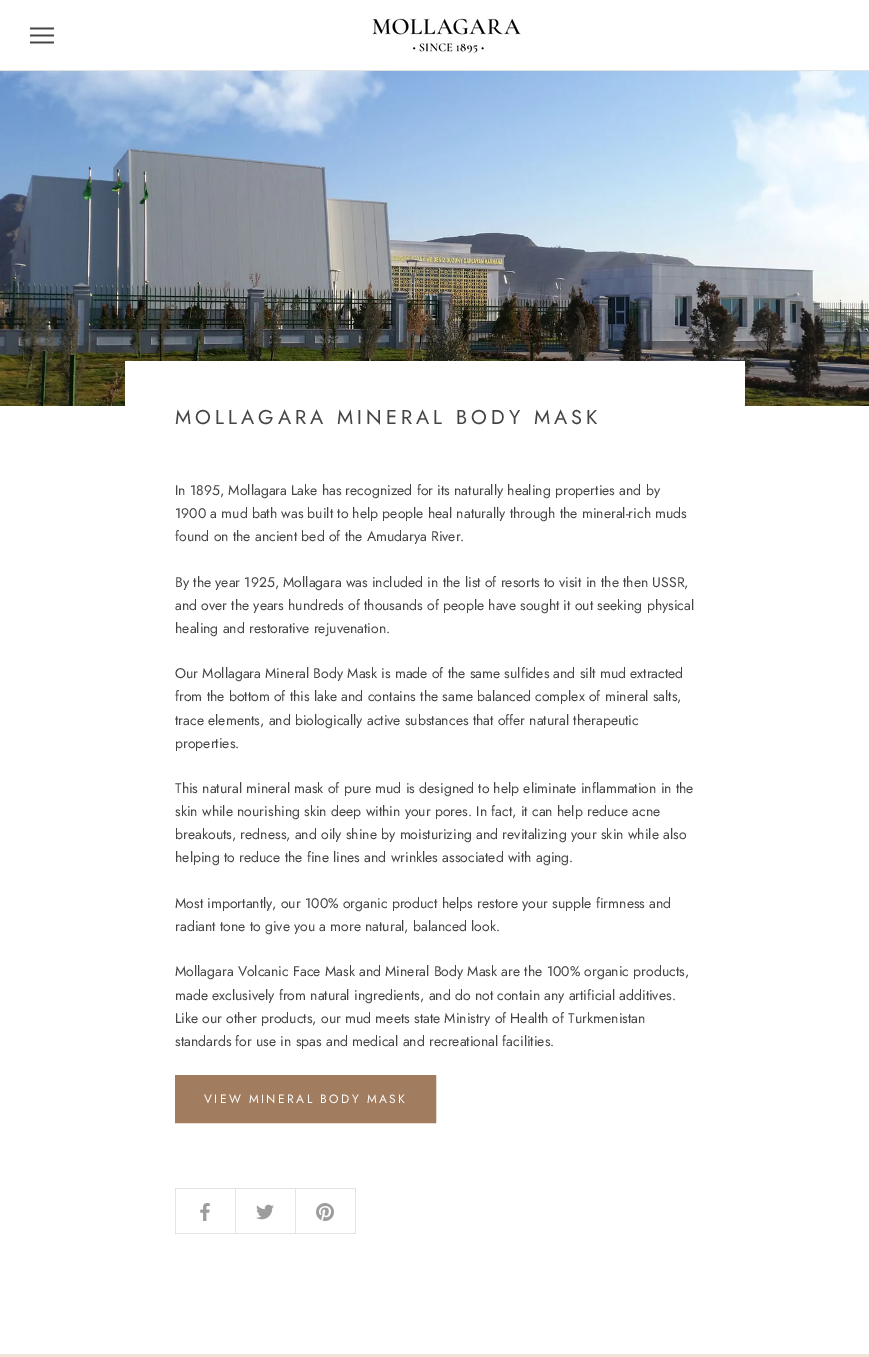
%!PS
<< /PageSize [869 1357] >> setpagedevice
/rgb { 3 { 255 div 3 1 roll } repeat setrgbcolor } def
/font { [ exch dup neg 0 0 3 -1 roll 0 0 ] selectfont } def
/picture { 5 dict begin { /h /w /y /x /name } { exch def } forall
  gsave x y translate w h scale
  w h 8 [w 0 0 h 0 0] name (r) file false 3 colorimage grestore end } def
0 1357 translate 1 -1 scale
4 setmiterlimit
255 255 255 rgb
0 0 869 1357 rectfill
227 227 227 rgb
0 70 869 1 rectfill
(img/1.rgb) 30 27 24 17 picture
(img/2.rgb) 372 18 149 35 picture
(img/3.rgb) 0 71 869 335 picture
255 255 255 rgb
125 361 620 45 rectfill
161 124 94 rgb
175.5 1075.5 260 47 rectstroke
[
  [176 1076 259 46 161 124 94]
  [295 1188 61 1 227 227 227]
  [355 1188 1 46 227 227 227]
  [295 1233 61 1 227 227 227]
  [295 1188 1 46 227 227 227]
  [235 1188 61 1 227 227 227]
  [235 1233 61 1 227 227 227]
  [235 1188 1 46 227 227 227]
  [175 1188 61 1 227 227 227]
  [175 1233 61 1 227 227 227]
  [175 1188 1 46 227 227 227]
] { aload pop rgb rectfill } forall
(img/4.rgb) 200 1203 10 18 picture
(img/5.rgb) 256 1204 18 16 picture
(img/6.rgb) 316 1203 18 18 picture
241 228 216 rgb
0 1354 869 3 rectfill
/Jost-Regular 20 font
69 69 69 rgb
175 424 moveto 4 0 (MOLLAGARA MINERAL BODY MASK) ashow
/Jost-Regular 14 font
[
  [(In 1895, Mollagara Lake has recognized for its naturally healing properties and by) 175 495]
  [(1900 a mud bath was built to help people heal naturally through the mineral-rich muds) 175 518]
  [(found on the ancient bed of the Amudarya River.) 175 541]
  [(By the year 1925, Mollagara was included in the list of resorts to visit in the then USSR,) 175 587]
  [(and over the years hundreds of thousands of people have sought it out seeking physical) 175 610]
  [(healing and restorative rejuvenation.) 175 633]
  [(Our Mollagara Mineral Body Mask is made of the same sulfides and silt mud extracted) 175 678]
  [(from the bottom of this lake and contains the same balanced complex of mineral salts,) 175 701]
  [(trace elements, and biologically active substances that offer natural therapeutic) 175 725]
  [(properties.) 175 748]
  [(This natural mineral mask of pure mud is designed to help eliminate inflammation in the) 175 793]
  [(skin while nourishing skin deep within your pores. In fact, it can help reduce acne) 175 816]
  [(breakouts, redness, and oily shine by moisturizing and revitalizing your skin while also) 175 839]
  [(helping to reduce the fine lines and wrinkles associated with aging.) 175 862]
  [(Most importantly, our 100% organic product helps restore your supple firmness and) 175 908]
  [(radiant tone to give you a more natural, balanced look.) 175 931]
  [(Mollagara Volcanic Face Mask and Mineral Body Mask are the 100% organic products,) 175 976]
  [(made exclusively from natural ingredients, and do not contain any artificial additives.) 175 1000]
  [(Like our other products, our mud meets state Ministry of Health of Turkmenistan) 175 1023]
  [(standards for use in spas and medical and recreational facilities.) 175 1046]
] { aload pop moveto show } forall
/Jost-Regular 12 font
255 255 255 rgb
204 1103 moveto 2.4 0 (VIEW MINERAL BODY MASK) ashow
showpage
